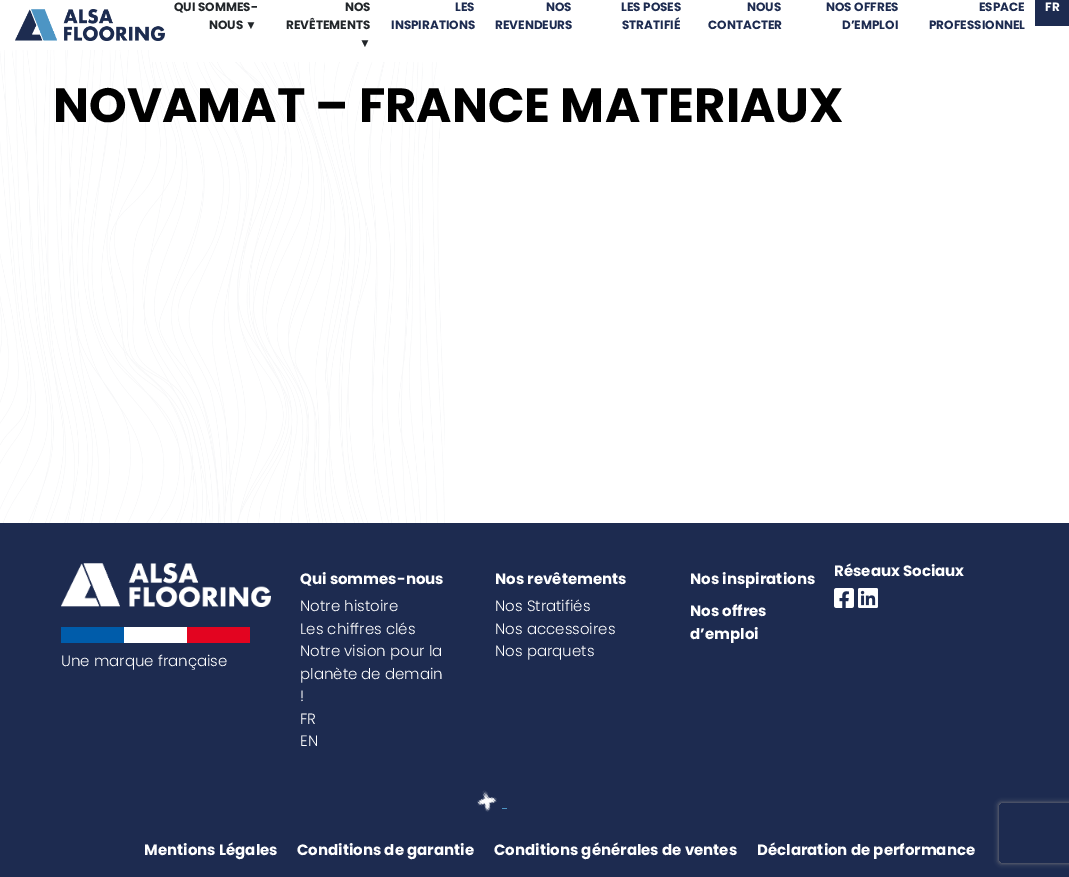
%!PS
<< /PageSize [1069 877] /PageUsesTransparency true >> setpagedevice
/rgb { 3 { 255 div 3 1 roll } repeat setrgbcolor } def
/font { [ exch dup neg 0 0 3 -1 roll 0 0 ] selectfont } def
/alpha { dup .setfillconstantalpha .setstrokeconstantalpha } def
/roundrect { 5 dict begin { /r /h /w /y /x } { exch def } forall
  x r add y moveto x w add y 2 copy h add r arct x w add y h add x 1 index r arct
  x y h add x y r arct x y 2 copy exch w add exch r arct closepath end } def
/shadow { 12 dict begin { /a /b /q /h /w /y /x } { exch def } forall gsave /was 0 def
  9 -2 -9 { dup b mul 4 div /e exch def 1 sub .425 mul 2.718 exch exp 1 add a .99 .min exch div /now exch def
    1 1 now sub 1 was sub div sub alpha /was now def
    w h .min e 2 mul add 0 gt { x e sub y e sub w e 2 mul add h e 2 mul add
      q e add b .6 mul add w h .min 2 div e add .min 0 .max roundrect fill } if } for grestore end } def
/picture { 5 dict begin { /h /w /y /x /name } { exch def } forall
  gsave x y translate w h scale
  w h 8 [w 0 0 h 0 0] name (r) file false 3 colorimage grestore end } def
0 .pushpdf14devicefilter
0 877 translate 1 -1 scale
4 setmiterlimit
255 255 255 rgb
0 0 1069 877 rectfill
(img/1.rgb) 0 50 445 473 picture
(img/2.rgb) 15 9 150 32 picture
[
  [151 50 288 12 255 255 255]
  [1035 0 34 26 29 43 80]
  [0 523 1069 354 29 43 80]
] { aload pop rgb rectfill } forall
(img/3.rgb) 834 588 20 20 picture
(img/4.rgb) 858 588 20 20 picture
(img/5.rgb) 61 563 210 44 picture
[
  [61 627 63 16 0 92 170]
  [124 627 63 16 255 255 255]
  [187 627 63 16 227 4 32]
] { aload pop rgb rectfill } forall
(img/6.rgb) 477 790 20 22 picture
77 149 196 rgb
502 808 5 1 rectfill
gsave
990 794 moveto 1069 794 lineto 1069 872 lineto 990 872 lineto closepath 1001 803 moveto 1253 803 lineto 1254 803 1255 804 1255 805 curveto 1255 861 lineto 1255 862 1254 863 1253 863 curveto 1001 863 lineto 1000 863 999 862 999 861 curveto 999 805 lineto 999 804 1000 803 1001 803 curveto closepath eoclip newpath
128 128 128 rgb
999 803 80 60 2 2.5 1 shadow
grestore
/Poppins-Bold 12 font
33 37 41 rgb
174 11 moveto (QUI SOMMES-) show
209 29 moveto (NOUS) show
/LiberationSans-Bold 12 font
245 29 moveto (▼) show
/Poppins-Bold 12 font
345 11 moveto (NOS) show
286 29 moveto (REVÊTEMENTS) show
/LiberationSans-Bold 12 font
359 47 moveto (▼) show
/Poppins-Bold 12 font
29 43 80 rgb
[
  [(LES) 455 11]
  [(INSPIRATIONS) 391 29]
  [(NOS) 546 11]
  [(REVENDEURS) 495 29]
  [(LES POSES) 621 11]
  [(STRATIFIÉ) 622 29]
  [(NOUS) 747 11]
  [(CONTACTER) 708 29]
  [(NOS OFFRES) 826 11]
  [(D’EMPLOI) 842 29]
  [(ESPACE) 979 11]
  [(PROFESSIONNEL) 929 29]
] { aload pop moveto show } forall
255 255 255 rgb
1045 11 moveto (FR) show
/Poppins-Bold 48 font
0 0 0 rgb
53 122 moveto (NOVAMAT – FRANCE MATERIAUX) show
/Poppins-Bold 15 font
255 255 255 rgb
834 576 moveto (Réseaux Sociaux) show
300 584 moveto (Qui sommes-nous) show
/Poppins-Light 15 font
[
  [(Notre histoire) 300 611]
  [(Les chiffres clés) 300 634]
  [(Notre vision pour la) 300 656]
  [(planète de demain) 300 679]
  [(!) 300 701]
  [(FR) 300 724]
  [(EN) 300 746]
] { aload pop moveto show } forall
/Poppins-Bold 15 font
495 584 moveto (Nos revêtements) show
/Poppins-Light 15 font
[
  [(Nos Stratifiés) 495 611]
  [(Nos accessoires) 495 634]
  [(Nos parquets) 495 656]
] { aload pop moveto show } forall
/Poppins-Bold 15 font
[
  [(Nos inspirations) 690 584]
  [(Nos offres) 690 616]
  [(d’emploi) 690 639]
] { aload pop moveto show } forall
/Poppins-Light 15 font
61 666 moveto (Une marque française) show
/Poppins-Bold 15 font
[
  [(Mentions Légales) 144 855]
  [(Conditions de garantie) 297 855]
  [(Conditions générales de ventes) 494 855]
  [(Déclaration de performance) 757 855]
] { aload pop moveto show } forall
.poppdf14devicefilter showpage
